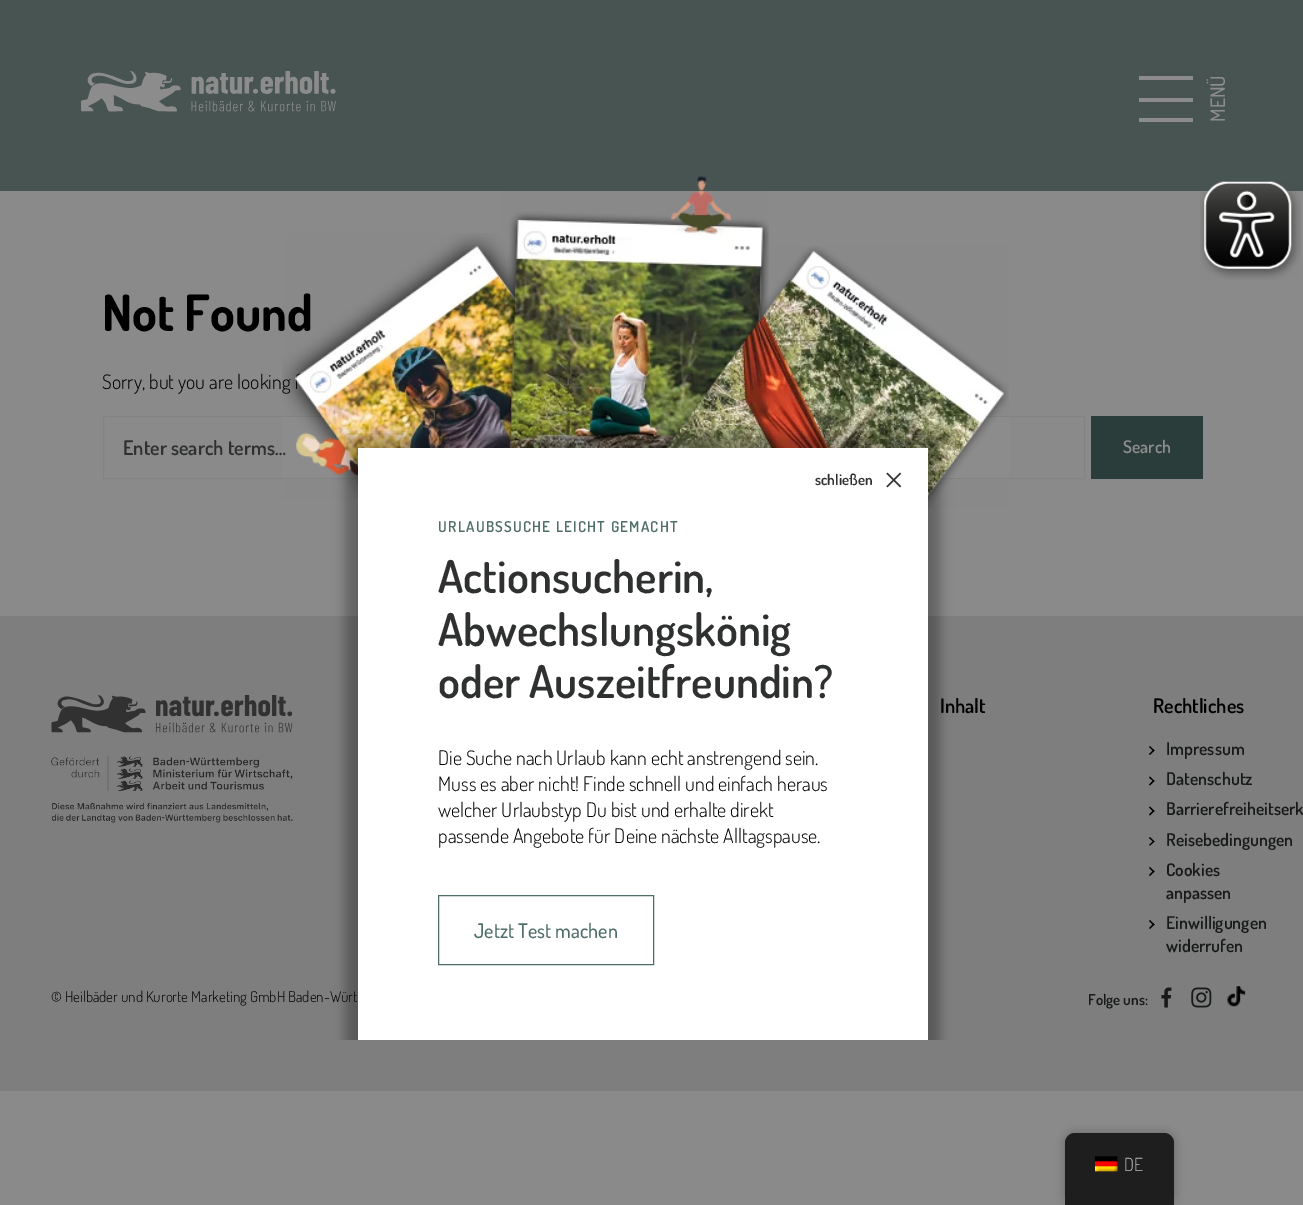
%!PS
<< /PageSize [1303 1205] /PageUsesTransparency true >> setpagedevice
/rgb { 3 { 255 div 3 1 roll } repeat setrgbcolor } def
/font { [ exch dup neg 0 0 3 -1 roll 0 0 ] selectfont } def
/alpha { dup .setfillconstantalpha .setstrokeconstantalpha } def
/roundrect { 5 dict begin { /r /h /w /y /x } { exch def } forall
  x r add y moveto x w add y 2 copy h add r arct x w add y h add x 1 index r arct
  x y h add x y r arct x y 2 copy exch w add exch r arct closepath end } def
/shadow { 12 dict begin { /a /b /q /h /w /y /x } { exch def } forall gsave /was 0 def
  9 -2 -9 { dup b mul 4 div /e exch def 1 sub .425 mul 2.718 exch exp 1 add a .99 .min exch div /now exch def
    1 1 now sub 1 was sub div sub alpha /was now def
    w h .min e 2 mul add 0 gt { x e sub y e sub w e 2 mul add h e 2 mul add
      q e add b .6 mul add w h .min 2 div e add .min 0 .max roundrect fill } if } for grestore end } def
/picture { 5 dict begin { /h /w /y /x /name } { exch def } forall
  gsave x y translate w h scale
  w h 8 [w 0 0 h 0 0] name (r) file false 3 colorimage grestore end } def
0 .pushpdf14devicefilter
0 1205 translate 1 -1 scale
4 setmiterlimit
138 138 138 rgb
0 0 1303 1205 rectfill
72 84 81 rgb
0 0 1303 191 rectfill
(img/1.rgb) 80 71 256 41 picture
[
  [1139 76 54 4 140 140 140]
  [1139 98 54 4 140 140 140]
  [1139 118 54 4 140 140 140]
] { aload pop rgb rectfill } forall
131 131 131 rgb
103.5 416.5 981 62 rectstroke
43 61 58 rgb
1091 416 112 63 rectfill
125 126 125 rgb
0 616 1303 475 rectfill
(img/2.rgb) 51 695 242 38 picture
(img/3.rgb) 51 756 242 67 picture
0 0 0 rgb
1149 747 moveto 1150 746 lineto 1154.5 750.5 lineto 1153.5 751.5 lineto closepath fill
1149 754 moveto 1153.5 749.5 lineto 1154.5 750.5 lineto 1150 755 lineto closepath fill
1149 777.5 moveto 1150 776.5 lineto 1154.5 781 lineto 1153.5 781.5 lineto closepath fill
1149 784.5 moveto 1153.5 780 lineto 1154.5 781 lineto 1150 785.5 lineto closepath fill
1149 807.5 moveto 1150 806.5 lineto 1154.5 811 lineto 1153.5 812 lineto closepath fill
1149 814.5 moveto 1153.5 810 lineto 1154.5 811 lineto 1150 815.5 lineto closepath fill
1149 838 moveto 1150 837 lineto 1154.5 841.5 lineto 1153.5 842 lineto closepath fill
1149 845 moveto 1153.5 840.5 lineto 1154.5 841.5 lineto 1150 845.5 lineto closepath fill
1149 868 moveto 1150 867 lineto 1154.5 871.5 lineto 1153.5 872.5 lineto closepath fill
1149 875 moveto 1153.5 870.5 lineto 1154.5 871.5 lineto 1150 876 lineto closepath fill
1149 921 moveto 1150 920 lineto 1154.5 924.5 lineto 1153.5 925.5 lineto closepath fill
1149 928 moveto 1153.5 923.5 lineto 1154.5 924.5 lineto 1150 929 lineto closepath fill
(img/4.rgb) 1161 987 11 21 picture
(img/5.rgb) 1191 987 21 21 picture
(img/6.rgb) 1227 986 19 21 picture
(img/7.rgb) 1200 181 101 99 picture
1065 1133 109 72 10 5 0.25 shadow
30 30 30 rgb
1075 1133 moveto 1164 1133 lineto 1169.5 1133 1174 1137.5 1174 1143 curveto 1174 1205 lineto 1065 1205 lineto 1065 1143 lineto 1065 1137.5 1069.5 1133 1075 1133 curveto closepath fill
(img/12.rgb) 1095 1156 23 16 picture
/Dosis-Medium 20 font
140 140 140 rgb
gsave 1225 122 translate -90 rotate 0 0 moveto (MENÜ) show grestore
/Dosis-Bold 50 font
0 0 0 rgb
102 331 moveto (Not Found) show
/Dosis-Light 20 font
102 389 moveto (Sorry, but you are looking f) show
/Dosis-SemiBold 20 font
47 48 48 rgb
123 455 moveto (Enter search terms…) show
/Dosis-SemiBold 17.5 font
140 140 140 rgb
1123 453 moveto (Search) show
/Dosis-SemiBold 20 font
0 0 0 rgb
940 713 moveto (Inhalt) show
1153 713 moveto (Rechtliches) show
/Dosis-SemiBold 17.5 font
24 26 26 rgb
[
  [(Impressum) 1166 755]
  [(Datenschutz) 1166 785]
  [(Barrierefreiheitserk) 1166 815]
  [(Reisebedingungen) 1166 846]
  [(Cookies) 1166 876]
  [(anpassen) 1166 899]
  [(Einwilligungen) 1166 929]
  [(widerrufen) 1166 952]
] { aload pop moveto show } forall
/Dosis-Light 15 font
0 0 0 rgb
51 1002 moveto (© Heilbäder und Kurorte Marketing GmbH Baden-Würt) show
/Dosis-SemiBold 15 font
24 26 26 rgb
1088 1005 moveto (Folge uns:) show
(img/8.rgb) 282 233 235 266 picture
(img/9.rgb) 502 176 267 272 picture
(img/10.rgb) 657 246 352 263 picture
gsave
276 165 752 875 rectclip
0 0 0 rgb
345 435 595 618 0 6 0.3 shadow
grestore
255 255 255 rgb
358 448 570 592 rectfill
47 48 48 rgb
815 485 moveto (schließen) show
(img/11.rgb) 886 472 16 16 picture
79 110 105 rgb
438 532 moveto 1.25 0 (URLAUBSSUCHE LEICHT GEMACHT) ashow
/Dosis-SemiBold 45 font
47 48 48 rgb
[
  [(Actionsucherin,) 438 593]
  [(Abwechslungskönig) 438 646]
  [(oder Auszeitfreundin?) 438 698]
] { aload pop moveto show } forall
/Dosis-Light 20 font
0 0 0 rgb
[
  [(Die Suche nach Urlaub kann echt anstrengend sein.) 438 765]
  [(Muss es aber nicht! Finde schnell und einfach heraus) 438 791]
  [(welcher Urlaubstyp Du bist und erhalte direkt) 438 817]
  [(passende Angebote für Deine nächste Alltagspause.) 438 843]
] { aload pop moveto show } forall
79 110 105 rgb
438.5 895.5 215 69 rectstroke
/Dosis-Medium 20 font
474 938 moveto (Jetzt Test machen) show
/Dosis-Light 18 font
189 189 189 rgb
1124 1171 moveto (DE) show
.poppdf14devicefilter showpage
